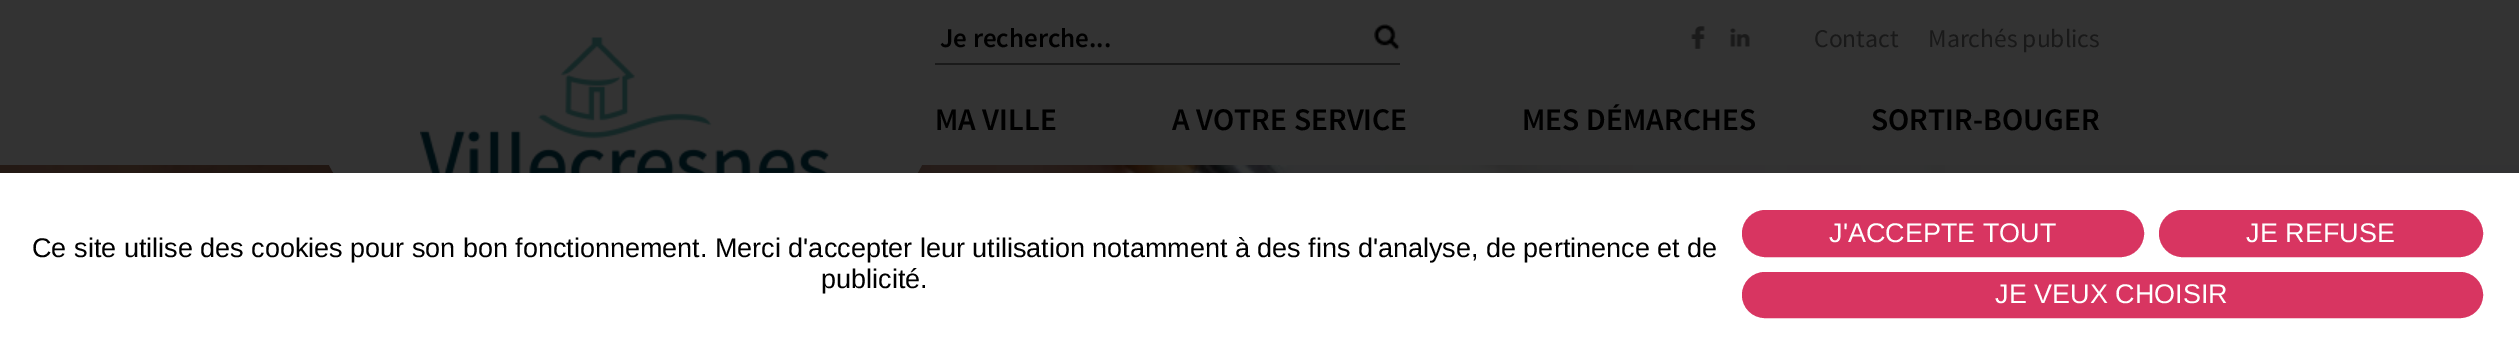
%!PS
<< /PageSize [2519 355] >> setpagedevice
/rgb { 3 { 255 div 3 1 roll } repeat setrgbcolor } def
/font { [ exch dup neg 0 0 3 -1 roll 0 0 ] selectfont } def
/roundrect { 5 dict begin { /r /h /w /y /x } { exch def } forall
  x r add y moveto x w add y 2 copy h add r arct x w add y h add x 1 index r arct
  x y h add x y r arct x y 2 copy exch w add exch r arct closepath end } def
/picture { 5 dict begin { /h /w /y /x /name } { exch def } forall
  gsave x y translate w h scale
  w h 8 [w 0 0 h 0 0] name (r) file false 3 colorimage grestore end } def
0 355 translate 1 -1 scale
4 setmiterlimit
51 51 51 rgb
0 0 2519 355 rectfill
(img/5.rgb) 0 165 2519 8 picture
625.5 2 moveto 793 2 928.5 62.5 928.5 137 curveto 928.5 211.5 793 272 625.5 272 curveto 458 272 322.5 211.5 322.5 137 curveto 322.5 62.5 458 2 625.5 2 curveto closepath fill
(img/1.rgb) 420 37 409 136 picture
26 26 26 rgb
935 63 465 2 rectfill
(img/2.rgb) 1374 24 26 26 picture
(img/3.rgb) 1691 26 14 23 picture
(img/4.rgb) 1730 28 20 19 picture
255 255 255 rgb
0 173 2519 182 rectfill
216 53 97 rgb
1743 211 400 45 22.5 roundrect gsave fill grestore
2 setlinewidth
stroke
2160 211 322 45 22.5 roundrect gsave fill grestore
stroke
1743 273 739 44 22 roundrect gsave fill grestore
stroke
/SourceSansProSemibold-SemiBold 27 font
0 0 0 rgb
940 47 moveto (Je recherche...) show
/SourceSansPro-Regular 25.5 font
25 25 25 rgb
1814 47 moveto (Contact) show
1928 47 moveto (Marchés publics) show
/SourceSansProSemibold-SemiBold 31.5 font
0 0 0 rgb
[
  [(MA VILLE) 935 130]
  [(A VOTRE SERVICE) 1172 130]
  [(MES DÉMARCHES) 1522 130]
  [(SORTIR-BOUGER) 1871 130]
] { aload pop moveto show } forall
/LiberationSans-Regular 27 font
32 257 moveto (Ce site utilise des cookies pour son bon fonctionnement. Merci d'accepter leur utilisation notamment à des fins d'analyse, de pertinence et de) show
821 288 moveto (publicité.) show
255 255 255 rgb
[
  [(J'ACCEPTE TOUT) 1829 242]
  [(JE REFUSE) 2246 242]
  [(JE VEUX CHOISIR) 1995 303]
] { aload pop moveto show } forall
showpage
